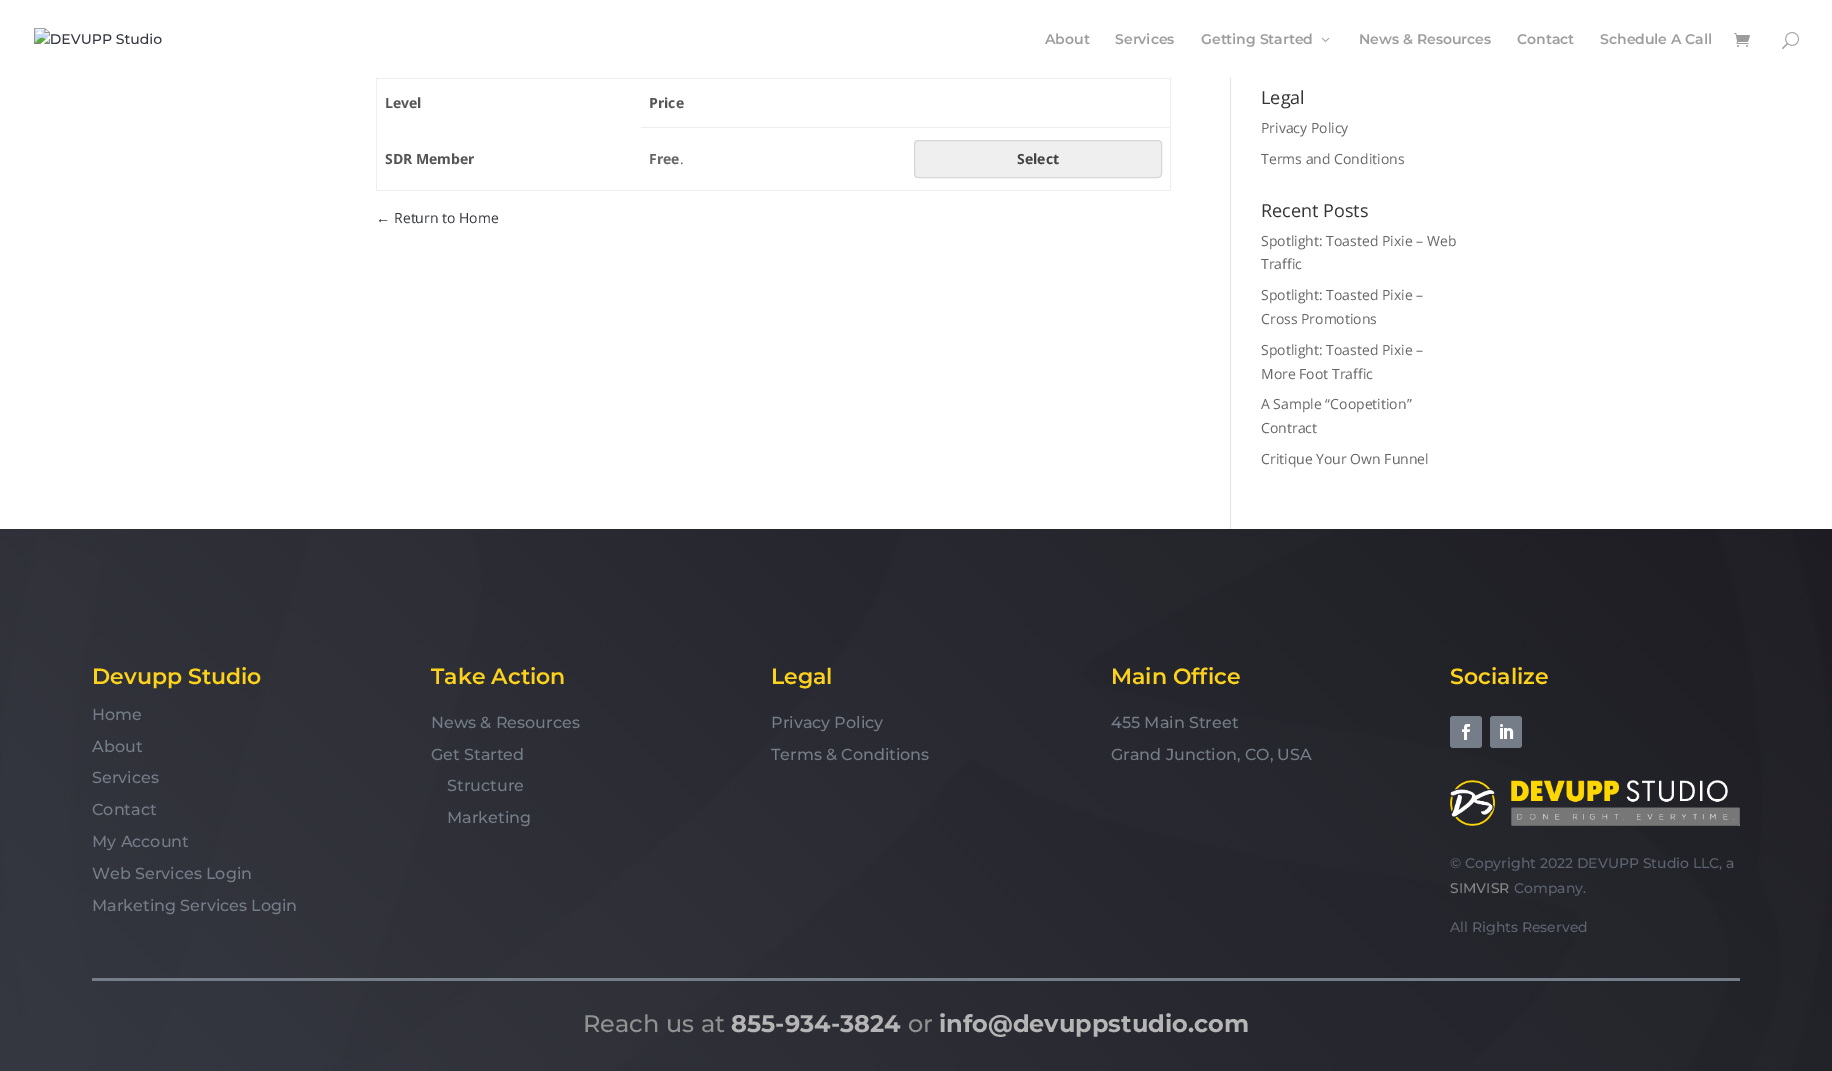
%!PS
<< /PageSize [1832 1071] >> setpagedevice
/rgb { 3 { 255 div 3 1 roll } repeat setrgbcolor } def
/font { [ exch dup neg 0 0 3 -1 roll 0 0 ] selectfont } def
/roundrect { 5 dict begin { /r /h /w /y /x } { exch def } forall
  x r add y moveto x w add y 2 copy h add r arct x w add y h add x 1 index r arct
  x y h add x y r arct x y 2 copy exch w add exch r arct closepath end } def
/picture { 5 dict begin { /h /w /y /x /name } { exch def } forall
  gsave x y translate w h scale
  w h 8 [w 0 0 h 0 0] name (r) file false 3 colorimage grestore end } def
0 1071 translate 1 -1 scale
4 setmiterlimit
255 255 255 rgb
0 0 1832 1071 rectfill
(img/1.rgb) 34 28 128 16 picture
(img/2.rgb) 1321 37 9 5 picture
(img/3.rgb) 1734 33 16 14 picture
(img/4.rgb) 1782 32 17 17 picture
[
  [1230 78 1 451 226 226 226]
  [376 78 795 1 238 238 238]
  [1170 78 1 113 238 238 238]
  [376 190 795 1 238 238 238]
  [376 78 1 113 238 238 238]
  [641 127 530 1 238 238 238]
] { aload pop rgb rectfill } forall
239 239 239 rgb
914.5 140.5 247 37 3.5 roundrect gsave fill grestore
214 214 214 rgb
stroke
(img/5.rgb) 0 529 1832 542 picture
116 125 136 rgb
1450 716 32 32 3 roundrect fill
(img/6.rgb) 1462 724 8 16 picture
1490 716 32 32 3 roundrect fill
(img/7.rgb) 1500 724 14 15 picture
(img/8.rgb) 1450 780 290 46 picture
92 978 1648 3 rectfill
/Montserrat-Thin 14 font
157 157 157 rgb
[
  [(About) 1045 44]
  [(Services) 1115 44]
  [(Getting Started) 1201 44]
  [(News & Resources) 1359 44]
  [(Contact) 1517 44]
  [(Schedule A Call) 1600 44]
] { aload pop moveto show } forall
/OpenSans-Bold 14 font
85 85 85 rgb
[
  [(Level) 385 108]
  [(Price) 649 108]
  [(SDR Member) 385 164]
] { aload pop moveto show } forall
102 102 102 rgb
649 164 moveto (Free) show
/OpenSans-Regular 14 font
680 164 moveto (.) show
/OpenSans-Bold 14 font
68 68 68 rgb
1017 164 moveto (Select) show
/LiberationSans-Regular 14 font
53 55 64 rgb
376 223 moveto (←) show
/OpenSans-Regular 14 font
394 223 moveto (Return to Home) show
/OpenSans-Regular 18 font
51 51 51 rgb
1261 104 moveto (Legal) show
/OpenSans-Regular 14 font
102 102 102 rgb
1261 133 moveto (Privacy Policy) show
1261 164 moveto (Terms and Conditions) show
/OpenSans-Regular 18 font
51 51 51 rgb
1261 217 moveto (Recent Posts) show
/OpenSans-Regular 14 font
102 102 102 rgb
[
  [(Spotlight: Toasted Pixie – Web) 1261 246]
  [(Traffic) 1261 269]
  [(Spotlight: Toasted Pixie –) 1261 300]
  [(Cross Promotions) 1261 324]
  [(Spotlight: Toasted Pixie –) 1261 355]
  [(More Foot Traffic) 1261 379]
  [(A Sample “Coopetition”) 1261 409]
  [(Contract) 1261 433]
  [(Critique Your Own Funnel) 1261 464]
] { aload pop moveto show } forall
/Montserrat-Thin 22 font
252 210 29 rgb
92 684 moveto (Devupp Studio) show
/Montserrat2-Thin 16 font
116 125 136 rgb
[
  [(Home) 92 720]
  [(About) 92 752]
  [(Services) 92 783]
  [(Contact) 92 815]
  [(My Account) 92 847]
  [(Web Services Login) 92 879]
  [(Marketing Services Login) 92 911]
] { aload pop moveto show } forall
/Montserrat-Thin 22 font
252 210 29 rgb
431 684 moveto (Take Action) show
/Montserrat2-Thin 16 font
116 125 136 rgb
[
  [(News & Resources) 431 728]
  [(Get Started) 431 760]
  [(Structure) 447 791]
  [(Marketing) 447 823]
] { aload pop moveto show } forall
/Montserrat-Thin 22 font
252 210 29 rgb
771 684 moveto (Legal) show
/Montserrat2-Thin 16 font
116 125 136 rgb
771 728 moveto (Privacy Policy) show
771 760 moveto (Terms & Conditions) show
/Montserrat-Thin 22 font
252 210 29 rgb
1111 684 moveto (Main Office) show
/Montserrat2-Thin 16 font
116 125 136 rgb
1111 728 moveto (455 Main Street) show
1111 760 moveto (Grand Junction, CO, USA) show
/Montserrat-Thin 22 font
252 210 29 rgb
1450 684 moveto (Socialize) show
/Montserrat2-Thin 14 font
93 99 112 rgb
1450 868 moveto (© Copyright 2022 DEVUPP Studio LLC, a) show
135 135 135 rgb
1450 893 moveto (SIMVISR) show
93 99 112 rgb
1514 893 moveto (Company.) show
1450 932 moveto (All Rights Reserved) show
/Montserrat2-Thin 24 font
145 145 145 rgb
583 1032 moveto (Reach us at) show
/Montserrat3-Thin 24 font
181 181 181 rgb
731 1032 moveto (855-934-3824) show
/Montserrat2-Thin 24 font
145 145 145 rgb
908 1032 moveto (or) show
/Montserrat3-Thin 24 font
181 181 181 rgb
939 1032 moveto (info@devuppstudio.com) show
showpage
